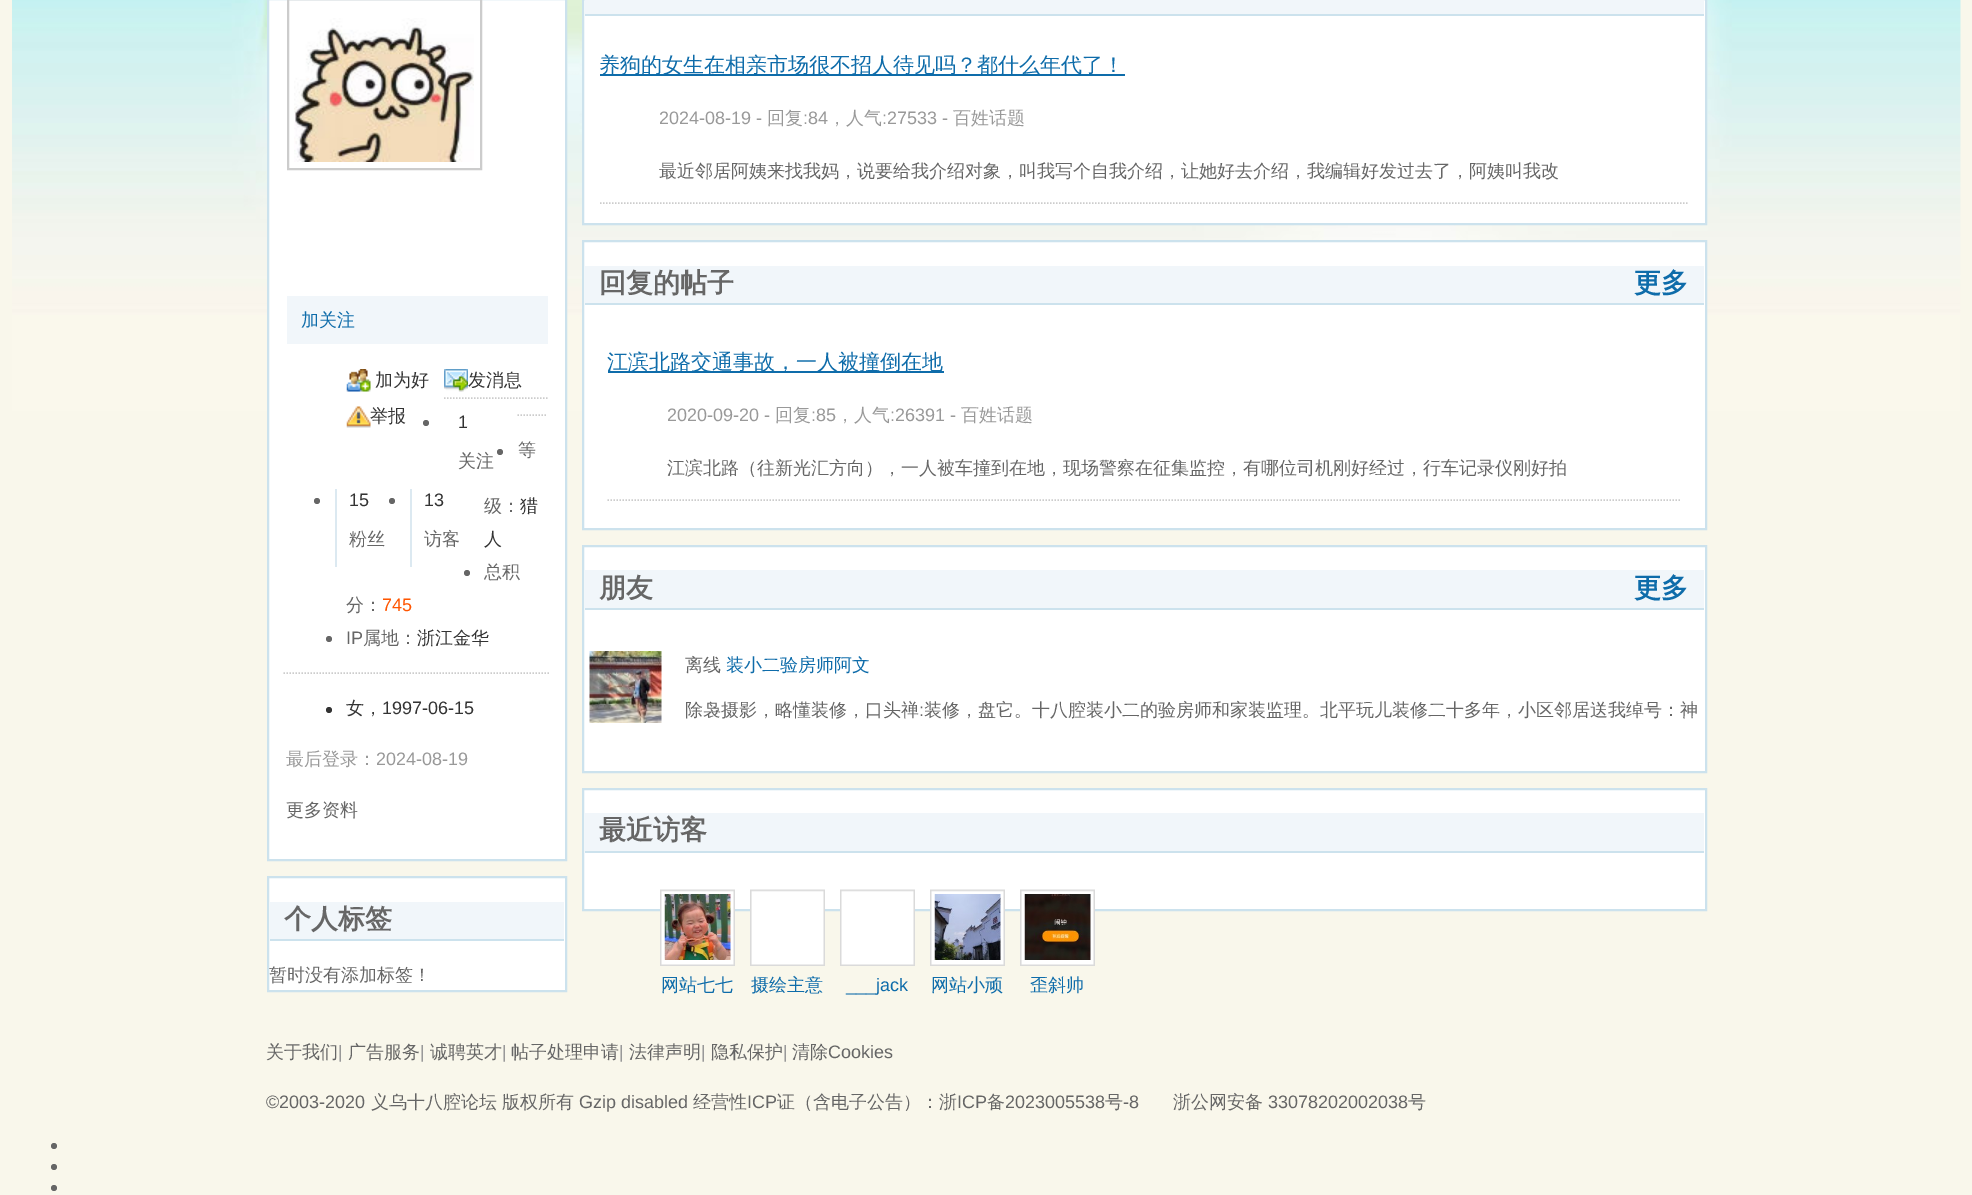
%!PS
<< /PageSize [1972 1195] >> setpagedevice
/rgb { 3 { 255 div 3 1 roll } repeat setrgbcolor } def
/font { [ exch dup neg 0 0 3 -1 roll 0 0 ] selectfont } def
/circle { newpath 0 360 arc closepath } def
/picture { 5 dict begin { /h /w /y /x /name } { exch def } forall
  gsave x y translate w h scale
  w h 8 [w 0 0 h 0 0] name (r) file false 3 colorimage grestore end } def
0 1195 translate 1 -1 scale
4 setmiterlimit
249 247 235 rgb
0 0 1972 1195 rectfill
(img/1.rgb) 12 0 1949 411 picture
255 255 255 rgb
268 -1 moveto 566 -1 lineto 566 860 lineto 268 860 lineto closepath gsave fill grestore
204 226 237 rgb
2 setlinewidth
stroke
204 204 204 rgb
288 -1 193 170 rectstroke
(img/2.rgb) 294 18 180 144 picture
241 246 250 rgb
287 296 261 48 rectfill
(img/3.rgb) 346 369 25 23 picture
(img/4.rgb) 444 369 24 23 picture
(img/5.rgb) 346 406 25 22 picture
204 204 204 rgb
1.5 setlinewidth
[1.5 1.5] 0 setdash
444 398 moveto 547.5 398 lineto stroke
102 102 102 rgb
426 423 3 circle fill
220 233 241 rgb
335 489 2 78 rectfill
102 102 102 rgb
317 501 3 circle fill
220 233 241 rgb
410 489 2 78 rectfill
102 102 102 rgb
392 501 3 circle fill
204 204 204 rgb
517.5 415 moveto 547.5 415 lineto stroke
102 102 102 rgb
500 452 3 circle fill
467 573 3 circle fill
329 639 3 circle fill
204 204 204 rgb
283.5 673 moveto 550.5 673 lineto stroke
51 51 51 rgb
329 710 3 circle fill
255 255 255 rgb
268 877 moveto 566 877 lineto 566 991 lineto 268 991 lineto closepath gsave fill grestore
204 226 237 rgb
2 setlinewidth
[] 0 setdash
stroke
241 246 250 rgb
270 902 294 37 rectfill
204 226 237 rgb
270 939 294 2 rectfill
255 255 255 rgb
583 -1 moveto 1706 -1 lineto 1706 224 lineto 583 224 lineto closepath gsave fill grestore
204 226 237 rgb
stroke
241 246 250 rgb
585 0 1119 14 rectfill
204 226 237 rgb
585 14 1119 2 rectfill
204 204 204 rgb
1.5 setlinewidth
[1.5 1.5] 0 setdash
600 203 moveto 1689 203 lineto stroke
14 108 170 rgb
600 74 525 2 rectfill
255 255 255 rgb
583 241 moveto 1706 241 lineto 1706 529 lineto 583 529 lineto closepath gsave fill grestore
204 226 237 rgb
2 setlinewidth
[] 0 setdash
stroke
241 246 250 rgb
585 266 1119 37 rectfill
204 226 237 rgb
585 303 1119 2 rectfill
204 204 204 rgb
1.5 setlinewidth
[1.5 1.5] 0 setdash
607.5 500 moveto 1681.5 500 lineto stroke
14 108 170 rgb
608 371 336 2 rectfill
255 255 255 rgb
583 546 moveto 1706 546 lineto 1706 772 lineto 583 772 lineto closepath gsave fill grestore
204 226 237 rgb
2 setlinewidth
[] 0 setdash
stroke
241 246 250 rgb
585 570 1119 38 rectfill
204 226 237 rgb
585 608 1119 2 rectfill
(img/6.rgb) 589 651 73 72 picture
255 255 255 rgb
583 789 moveto 1706 789 lineto 1706 910 lineto 583 910 lineto closepath gsave fill grestore
204 226 237 rgb
stroke
241 246 250 rgb
585 813 1119 38 rectfill
204 226 237 rgb
585 851 1119 2 rectfill
(img/7.rgb) 660 889 75 77 picture
(img/8.rgb) 664 894 67 66 picture
(img/9.rgb) 750 889 75 77 picture
(img/7.rgb) 840 889 75 77 picture
(img/7.rgb) 930 889 75 77 picture
(img/10.rgb) 934 894 67 66 picture
(img/9.rgb) 1020 889 75 77 picture
(img/11.rgb) 1024 894 67 66 picture
102 102 102 rgb
54 1146 3 circle fill
54 1167 3 circle fill
54 1188 3 circle fill
/WenQuanYiZenHei-Medium 18 font
14 108 170 rgb
301 326 moveto (加关注) show
51 51 51 rgb
[
  [(加为好) 375 386]
  [(发消息) 468 386]
  [(举报) 370 422]
] { aload pop moveto show } forall
/LiberationSans-Regular 18 font
458 428 moveto (1) show
/WenQuanYiZenHei-Medium 18 font
102 102 102 rgb
458 467 moveto (关注) show
/LiberationSans-Regular 18 font
51 51 51 rgb
349 506 moveto (15) show
/WenQuanYiZenHei-Medium 18 font
102 102 102 rgb
349 545 moveto (粉丝) show
/LiberationSans-Regular 18 font
51 51 51 rgb
424 506 moveto (13) show
/WenQuanYiZenHei-Medium 18 font
102 102 102 rgb
[
  [(访客) 424 545]
  [(等) 518 456]
  [(级：) 484 512]
] { aload pop moveto show } forall
51 51 51 rgb
520 512 moveto (猎) show
484 545 moveto (人) show
102 102 102 rgb
484 578 moveto (总积) show
346 611 moveto (分：) show
/LiberationSans-Regular 18 font
255 85 0 rgb
382 611 moveto (745) show
102 102 102 rgb
346 644 moveto (IP) show
/WenQuanYiZenHei-Medium 18 font
363 644 moveto (属地：) show
51 51 51 rgb
417 644 moveto (浙江金华) show
346 714 moveto (女，) show
/LiberationSans-Regular 18 font
382 714 moveto (1997-06-15) show
/WenQuanYiZenHei-Medium 18 font
153 153 153 rgb
286 765 moveto (最后登录：) show
/LiberationSans-Regular 18 font
376 765 moveto (2024-08-19) show
/WenQuanYiZenHei-Medium 18 font
102 102 102 rgb
286 816 moveto (更多资料) show
/WenQuanYiZenHei-Bold 27 font
284 928 moveto (个人标签) show
/WenQuanYiZenHei-Medium 18 font
269 981 moveto (暂时没有添加标签！) show
/WenQuanYiZenHei-Medium 21 font
14 108 170 rgb
599 72 moveto (养狗的女生在相亲市场很不招人待见吗？都什么年代了！) show
/LiberationSans-Regular 18 font
153 153 153 rgb
659 124 moveto (2024-08-19 -) show
/WenQuanYiZenHei-Medium 18 font
767 124 moveto (回复) show
/LiberationSans-Regular 18 font
803 124 moveto (:84) show
/WenQuanYiZenHei-Medium 18 font
828 124 moveto (，人气) show
/LiberationSans-Regular 18 font
882 124 moveto (:27533 -) show
/WenQuanYiZenHei-Medium 18 font
953 124 moveto (百姓话题) show
102 102 102 rgb
659 177 moveto (最近邻居阿姨来找我妈，说要给我介绍对象，叫我写个自我介绍，让她好去介绍，我编辑好发过去了，阿姨叫我改) show
/WenQuanYiZenHei-Bold 27 font
599 292 moveto (回复的帖子) show
14 108 170 rgb
1634 292 moveto (更多) show
/WenQuanYiZenHei-Medium 21 font
607 369 moveto (江滨北路交通事故，一人被撞倒在地) show
/LiberationSans-Regular 18 font
153 153 153 rgb
667 421 moveto (2020-09-20 -) show
/WenQuanYiZenHei-Medium 18 font
775 421 moveto (回复) show
/LiberationSans-Regular 18 font
811 421 moveto (:85) show
/WenQuanYiZenHei-Medium 18 font
836 421 moveto (，人气) show
/LiberationSans-Regular 18 font
890 421 moveto (:26391 -) show
/WenQuanYiZenHei-Medium 18 font
961 421 moveto (百姓话题) show
102 102 102 rgb
667 474 moveto (江滨北路（往新光汇方向），一人被车撞到在地，现场警察在征集监控，有哪位司机刚好经过，行车记录仪刚好拍) show
/WenQuanYiZenHei-Bold 27 font
599 597 moveto (朋友) show
14 108 170 rgb
1634 597 moveto (更多) show
/WenQuanYiZenHei-Medium 18 font
102 102 102 rgb
685 671 moveto (离线) show
14 108 170 rgb
726 671 moveto (装小二验房师阿文) show
gsave
686 698 1014 27 rectclip
102 102 102 rgb
685 716 moveto (除袅摄影，略懂装修，口头禅) show
grestore
/LiberationSans-Regular 18 font
102 102 102 rgb
919 716 moveto (:) show
/WenQuanYiZenHei-Medium 18 font
924 716 moveto (装修，盘它。十八腔装小二的验房师和家装监理。北平玩儿装修二十多年，小区邻居送我绰号：神) show
/WenQuanYiZenHei-Bold 27 font
599 839 moveto (最近访客) show
/WenQuanYiZenHei-Medium 18 font
14 108 170 rgb
661 991 moveto (网站七七) show
751 991 moveto (摄绘主意) show
/LiberationSans-Regular 18 font
846 991 moveto (___jack) show
/WenQuanYiZenHei-Medium 18 font
931 991 moveto (网站小顽) show
1030 991 moveto (歪斜帅) show
102 102 102 rgb
266 1058 moveto (关于我们) show
/LiberationSans-Regular 18 font
153 153 153 rgb
338 1058 moveto (|) show
/WenQuanYiZenHei-Medium 18 font
102 102 102 rgb
348 1058 moveto (广告服务) show
/LiberationSans-Regular 18 font
153 153 153 rgb
420 1058 moveto (|) show
/WenQuanYiZenHei-Medium 18 font
102 102 102 rgb
430 1058 moveto (诚聘英才) show
/LiberationSans-Regular 18 font
153 153 153 rgb
502 1058 moveto (|) show
/WenQuanYiZenHei-Medium 18 font
102 102 102 rgb
511 1058 moveto (帖子处理申请) show
/LiberationSans-Regular 18 font
153 153 153 rgb
619 1058 moveto (|) show
/WenQuanYiZenHei-Medium 18 font
102 102 102 rgb
629 1058 moveto (法律声明) show
/LiberationSans-Regular 18 font
153 153 153 rgb
701 1058 moveto (|) show
/WenQuanYiZenHei-Medium 18 font
102 102 102 rgb
711 1058 moveto (隐私保护) show
/LiberationSans-Regular 18 font
153 153 153 rgb
783 1058 moveto (|) show
/WenQuanYiZenHei-Medium 18 font
102 102 102 rgb
792 1058 moveto (清除) show
/LiberationSans-Regular 18 font
828 1058 moveto (Cookies) show
266 1108 moveto (©2003-2020) show
/WenQuanYiZenHei-Medium 18 font
371 1108 moveto (义乌十八腔论坛) show
502 1108 moveto (版权所有) show
/LiberationSans-Regular 18 font
579 1108 moveto (Gzip disabled) show
/WenQuanYiZenHei-Medium 18 font
693 1108 moveto (经营性) show
/LiberationSans-Regular 18 font
747 1108 moveto (ICP) show
/WenQuanYiZenHei-Medium 18 font
777 1108 moveto (证（含电子公告）：浙) show
/LiberationSans-Regular 18 font
957 1108 moveto (ICP) show
/WenQuanYiZenHei-Medium 18 font
987 1108 moveto (备) show
/LiberationSans-Regular 18 font
1005 1108 moveto (2023005538) show
/WenQuanYiZenHei-Medium 18 font
1105 1108 moveto (号) show
/LiberationSans-Regular 18 font
1123 1108 moveto (-8) show
/WenQuanYiZenHei-Medium 18 font
1173 1108 moveto (浙公网安备) show
/LiberationSans-Regular 18 font
1268 1108 moveto (33078202002038) show
/WenQuanYiZenHei-Medium 18 font
1408 1108 moveto (号) show
showpage
